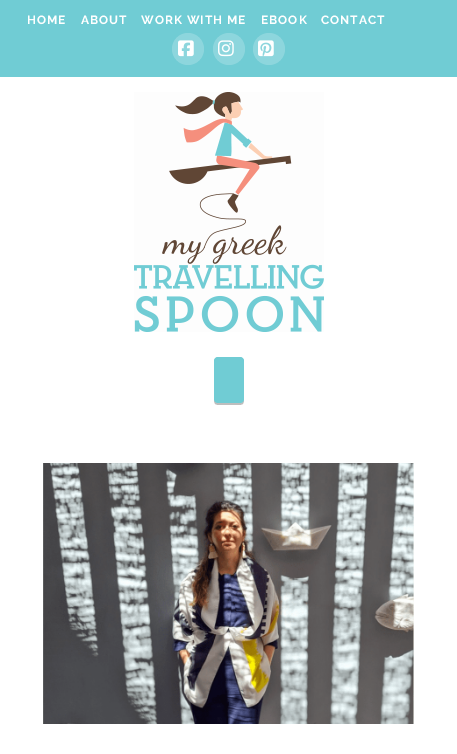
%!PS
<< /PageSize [457 754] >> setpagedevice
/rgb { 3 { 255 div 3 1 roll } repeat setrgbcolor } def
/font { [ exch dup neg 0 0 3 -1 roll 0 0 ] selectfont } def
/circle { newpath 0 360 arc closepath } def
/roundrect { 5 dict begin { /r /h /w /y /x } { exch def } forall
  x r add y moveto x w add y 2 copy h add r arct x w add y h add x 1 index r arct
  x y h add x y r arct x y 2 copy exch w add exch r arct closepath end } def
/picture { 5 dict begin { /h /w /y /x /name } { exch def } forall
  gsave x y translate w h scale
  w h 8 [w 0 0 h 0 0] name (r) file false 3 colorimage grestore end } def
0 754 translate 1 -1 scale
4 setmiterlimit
255 255 255 rgb
0 0 457 754 rectfill
112 204 212 rgb
0 0 457 77 rectfill
141 214 221 rgb
188 49 16 circle fill
(img/1.rgb) 178 40 16 17 picture
229 49 16 circle fill
(img/2.rgb) 218 40 16 17 picture
269 49 16 circle fill
(img/3.rgb) 258 40 16 17 picture
(img/4.rgb) 134 92 190 240 picture
190 190 190 rgb
214 399 moveto 214 405 216 405 221.5 405 curveto 236.5 405 lineto 242 405 244 405 244 399 curveto 244 401 242 403 240 403 curveto 218 403 lineto 216 403 214 401 214 399 curveto closepath fill
112 204 212 rgb
214 357 30 46 4 roundrect fill
(img/5.rgb) 43 463 371 261 picture
/Raleway-Bold 12 font
255 255 255 rgb
27 24 moveto 1 0 (HOME) ashow
81 24 moveto 1 0 (ABOUT) ashow
141 24 moveto 1 0 (WORK WITH ME) ashow
261 24 moveto 1 0 (EBOOK) ashow
321 24 moveto 1 0 (CONTACT) ashow
showpage
